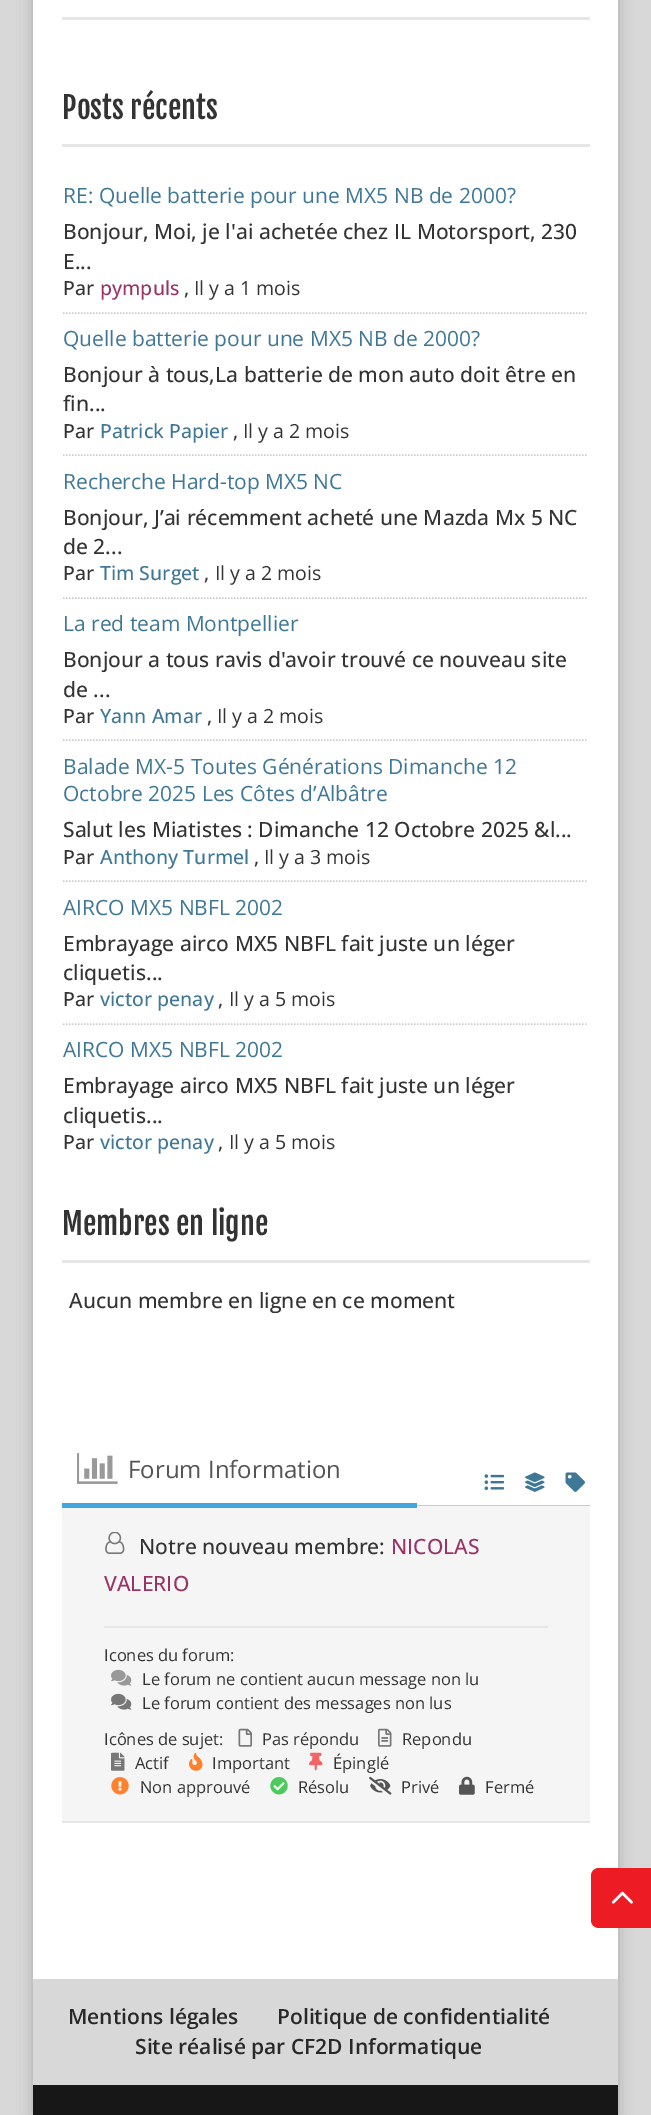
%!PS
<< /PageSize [651 2115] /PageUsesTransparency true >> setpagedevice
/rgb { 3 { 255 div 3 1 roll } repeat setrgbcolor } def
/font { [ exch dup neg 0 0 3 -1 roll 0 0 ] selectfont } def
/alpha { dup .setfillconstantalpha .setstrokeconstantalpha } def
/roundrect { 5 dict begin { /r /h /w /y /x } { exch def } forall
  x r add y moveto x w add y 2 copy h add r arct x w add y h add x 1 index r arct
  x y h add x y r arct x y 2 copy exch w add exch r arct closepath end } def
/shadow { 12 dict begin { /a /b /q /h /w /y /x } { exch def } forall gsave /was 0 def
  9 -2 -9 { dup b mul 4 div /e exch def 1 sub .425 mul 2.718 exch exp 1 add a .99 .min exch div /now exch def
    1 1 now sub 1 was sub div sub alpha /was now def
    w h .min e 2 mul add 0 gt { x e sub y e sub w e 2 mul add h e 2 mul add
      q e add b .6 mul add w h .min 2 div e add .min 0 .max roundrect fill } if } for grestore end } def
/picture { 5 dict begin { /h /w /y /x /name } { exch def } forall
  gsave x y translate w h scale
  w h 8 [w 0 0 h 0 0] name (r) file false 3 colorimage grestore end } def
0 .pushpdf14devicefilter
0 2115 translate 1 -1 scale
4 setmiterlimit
216 216 216 rgb
0 0 651 2115 rectfill
0 0 0 rgb
33 -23 585 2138 0 7.5 0.2 shadow
[
  [33 0 585 1979 255 255 255]
  [62 17 528 3 230 230 230]
  [62 144 528 3 230 230 230]
] { aload pop rgb rectfill } forall
204 204 204 rgb
1.5 setlinewidth
[1.5 1.5] 0 setdash
63 313 moveto 588 313 lineto stroke
63 455 moveto 588 455 lineto stroke
63 598 moveto 588 598 lineto stroke
63 740 moveto 588 740 lineto stroke
63 881 moveto 588 881 lineto stroke
63 1024 moveto 588 1024 lineto stroke
[
  [62 1260 528 3 230 230 230]
  [417 1505 173 1 204 204 204]
  [62 1506 528 315 245 245 245]
  [62 1503 355 5 67 166 223]
] { aload pop rgb rectfill } forall
(img/1.rgb) 77 1453 41 31 picture
(img/2.rgb) 484 1474 20 17 picture
(img/3.rgb) 525 1472 20 20 picture
(img/4.rgb) 565 1472 20 20 picture
(img/5.rgb) 105 1532 20 22 picture
230 230 230 rgb
104 1626 444 2 rectfill
(img/6.rgb) 111 1669 21 17 picture
(img/7.rgb) 111 1693 21 17 picture
(img/8.rgb) 238 1728 14 19 picture
(img/9.rgb) 378 1728 14 19 picture
(img/10.rgb) 111 1752 14 19 picture
(img/11.rgb) 189 1752 14 19 picture
(img/12.rgb) 309 1752 14 19 picture
(img/13.rgb) 111 1777 18 18 picture
(img/14.rgb) 270 1777 18 18 picture
(img/15.rgb) 369 1776 23 19 picture
(img/16.rgb) 459 1776 16 19 picture
62 1821 528 2 rectfill
237 28 36 rgb
599 1868 moveto 651 1868 lineto 651 1928 lineto 599 1928 lineto 594.5 1928 591 1924.5 591 1920 curveto 591 1876 lineto 591 1871.5 594.5 1868 599 1868 curveto closepath fill
(img/17.rgb) 611 1891 22 13 picture
216 216 216 rgb
33 1979 585 106 rectfill
23 23 23 rgb
33 2085 585 30 rectfill
/FjallaOne-Regular 30 font
51 51 51 rgb
62 119 moveto (Posts récents) show
/OpenSans-Regular 21 font
63 119 150 rgb
63 203 moveto (RE: Quelle batterie pour une MX5 NB de 2000?) show
/OpenSans-Medium 21 font
51 51 51 rgb
63 239 moveto (Bonjour, Moi, je l'ai achetée chez IL Motorsport, 230) show
63 269 moveto (E...) show
/OpenSans-Medium 19.5 font
63 295 moveto (Par) show
153 51 102 rgb
100 295 moveto (pympuls) show
51 51 51 rgb
184 295 moveto (,) show
/OpenSans-Regular 19.5 font
194 295 moveto (Il y a 1 mois) show
/OpenSans-Regular 21 font
63 119 150 rgb
63 346 moveto (Quelle batterie pour une MX5 NB de 2000?) show
/OpenSans-Medium 21 font
51 51 51 rgb
63 382 moveto (Bonjour à tous,La batterie de mon auto doit être en) show
63 411 moveto (fin...) show
/OpenSans-Medium 19.5 font
63 438 moveto (Par) show
63 119 150 rgb
100 438 moveto (Patrick Papier) show
51 51 51 rgb
233 438 moveto (,) show
/OpenSans-Regular 19.5 font
243 438 moveto (Il y a 2 mois) show
/OpenSans-Regular 21 font
63 119 150 rgb
63 489 moveto (Recherche Hard-top MX5 NC) show
/OpenSans-Medium 21 font
51 51 51 rgb
63 525 moveto (Bonjour, J’ai récemment acheté une Mazda Mx 5 NC) show
63 554 moveto (de 2...) show
/OpenSans-Medium 19.5 font
63 580 moveto (Par) show
63 119 150 rgb
100 580 moveto (Tim Surget) show
51 51 51 rgb
204 580 moveto (,) show
/OpenSans-Regular 19.5 font
215 580 moveto (Il y a 2 mois) show
/OpenSans-Regular 21 font
63 119 150 rgb
63 631 moveto (La red team Montpellier) show
/OpenSans-Medium 21 font
51 51 51 rgb
63 667 moveto (Bonjour a tous ravis d'avoir trouvé ce nouveau site) show
63 697 moveto (de ...) show
/OpenSans-Medium 19.5 font
63 723 moveto (Par) show
63 119 150 rgb
100 723 moveto (Yann Amar) show
51 51 51 rgb
207 723 moveto (,) show
/OpenSans-Regular 19.5 font
217 723 moveto (Il y a 2 mois) show
/OpenSans-Regular 21 font
63 119 150 rgb
63 774 moveto (Balade MX-5 Toutes Générations Dimanche 12) show
63 801 moveto (Octobre 2025 Les Côtes d’Albâtre) show
/OpenSans-Medium 21 font
51 51 51 rgb
63 837 moveto (Salut les Miatistes : Dimanche 12 Octobre 2025 &l...) show
/OpenSans-Medium 19.5 font
63 864 moveto (Par) show
63 119 150 rgb
100 864 moveto (Anthony Turmel) show
51 51 51 rgb
254 864 moveto (,) show
/OpenSans-Regular 19.5 font
264 864 moveto (Il y a 3 mois) show
/OpenSans-Regular 21 font
63 119 150 rgb
63 915 moveto (AIRCO MX5 NBFL 2002) show
/OpenSans-Medium 21 font
51 51 51 rgb
63 951 moveto (Embrayage airco MX5 NBFL fait juste un léger) show
63 980 moveto (cliquetis...) show
/OpenSans-Medium 19.5 font
63 1006 moveto (Par) show
63 119 150 rgb
100 1006 moveto (victor penay) show
51 51 51 rgb
218 1006 moveto (,) show
/OpenSans-Regular 19.5 font
229 1006 moveto (Il y a 5 mois) show
/OpenSans-Regular 21 font
63 119 150 rgb
63 1057 moveto (AIRCO MX5 NBFL 2002) show
/OpenSans-Medium 21 font
51 51 51 rgb
63 1093 moveto (Embrayage airco MX5 NBFL fait juste un léger) show
63 1123 moveto (cliquetis...) show
/OpenSans-Medium 19.5 font
63 1149 moveto (Par) show
63 119 150 rgb
100 1149 moveto (victor penay) show
51 51 51 rgb
218 1149 moveto (,) show
/OpenSans-Regular 19.5 font
229 1149 moveto (Il y a 5 mois) show
/FjallaOne-Regular 30 font
62 1235 moveto (Membres en ligne) show
/OpenSans-Medium 21 font
69 1308 moveto (Aucun membre en ligne en ce moment) show
/OpenSans-Regular 24 font
85 85 85 rgb
128 1478 moveto (Forum Information) show
/OpenSans-Medium 21 font
51 51 51 rgb
139 1554 moveto (Notre nouveau membre:) show
153 51 102 rgb
391 1554 moveto (NICOLAS) show
104 1591 moveto (VALERIO) show
/OpenSans-Regular 16.5 font
51 51 51 rgb
[
  [(Icones du forum:) 104 1661]
  [(Le forum ne contient aucun message non lu) 142 1685]
  [(Le forum contient des messages non lus) 142 1709]
  [(Icônes de sujet:) 104 1745]
  [(Pas répondu) 262 1745]
  [(Repondu) 402 1745]
  [(Actif) 135 1769]
  [(Important) 212 1769]
  [(Épinglé) 333 1769]
  [(Non approuvé) 140 1793]
  [(Résolu) 298 1793]
  [(Privé) 401 1793]
  [(Fermé) 485 1793]
] { aload pop moveto show } forall
/OpenSans-SemiBold 21 font
40 40 40 rgb
[
  [(Mentions légales) 68 2024]
  [(Politique de confidentialité) 277 2024]
  [(Site réalisé par CF2D Informatique) 135 2054]
] { aload pop moveto show } forall
.poppdf14devicefilter showpage
